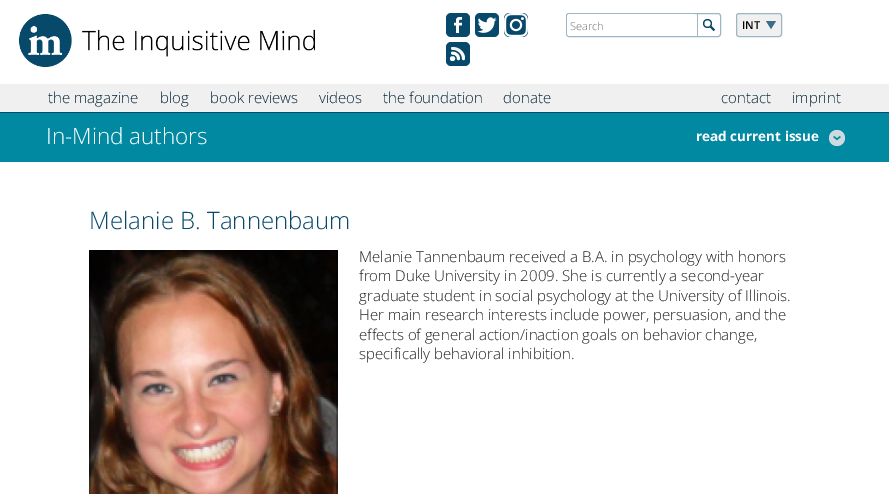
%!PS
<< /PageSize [889 494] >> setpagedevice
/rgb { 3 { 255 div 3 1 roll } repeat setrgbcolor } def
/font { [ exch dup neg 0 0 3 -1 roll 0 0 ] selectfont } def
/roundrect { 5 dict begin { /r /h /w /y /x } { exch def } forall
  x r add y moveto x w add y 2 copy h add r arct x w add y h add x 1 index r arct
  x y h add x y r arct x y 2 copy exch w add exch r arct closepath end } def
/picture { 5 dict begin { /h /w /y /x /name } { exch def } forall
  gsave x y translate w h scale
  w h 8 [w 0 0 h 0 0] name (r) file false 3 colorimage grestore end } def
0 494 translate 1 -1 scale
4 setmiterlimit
255 255 255 rgb
0 0 889 494 rectfill
(img/1.rgb) 19 14 296 53 picture
7 73 107 rgb
446 13 24 24 5 roundrect fill
(img/2.rgb) 454 17 8 16 picture
475 13 24 24 5 roundrect fill
(img/3.rgb) 477 17 20 16 picture
504 13 24 24 5 roundrect fill
(img/4.rgb) 504 13 24 24 picture
446 42 24 24 5 roundrect fill
(img/5.rgb) 450 47 15 14 picture
156 182 196 rgb
566.5 13.5 154 23 2.5 roundrect stroke
255 255 255 rgb
567 14 129 22 3 roundrect fill
156 182 196 rgb
697 14 1 22 rectfill
(img/6.rgb) 703 19 12 12 picture
240 240 240 rgb
736 13 46 24 3 roundrect fill
(img/7.rgb) 766 21 10 8 picture
156 182 196 rgb
736.5 13.5 45 23 2.5 roundrect stroke
[
  [0 84 889 28 240 240 240]
  [0 112 889 1 7 73 107]
  [0 113 889 49 0 137 161]
] { aload pop rgb rectfill } forall
(img/8.rgb) 829 130 16 16 picture
(img/9.rgb) 89 250 249 244 picture
/OpenSans-Light 11 font
117 117 117 rgb
570 30 moveto (Search) show
/OpenSans-SemiBold 11 font
0 0 0 rgb
742 29 moveto (INT) show
/OpenSans-Light 15 font
4 37 54 rgb
[
  [(the magazine) 48 103]
  [(blog) 160 103]
  [(book reviews) 210 103]
  [(videos) 319 103]
  [(the foundation) 383 103]
  [(donate) 503 103]
  [(contact) 721 103]
  [(imprint) 792 103]
] { aload pop moveto show } forall
/OpenSans-Light 22.5 font
255 255 255 rgb
46 144 moveto (In-Mind authors) show
/OpenSans-Bold 13.5 font
696 141 moveto (read current issue) show
/OpenSans-Light 24 font
7 73 107 rgb
89 229 moveto (Melanie B. Tannenbaum) show
/OpenSans-Light 15 font
35 31 32 rgb
[
  [(Melanie Tannenbaum received a B.A. in psychology with honors) 359 262]
  [(from Duke University in 2009. She is currently a second-year) 359 281]
  [(graduate student in social psychology at the University of Illinois.) 359 301]
  [(Her main research interests include power, persuasion, and the) 359 320]
  [(effects of general action/inaction goals on behavior change,) 359 340]
  [(specifically behavioral inhibition.) 359 359]
] { aload pop moveto show } forall
showpage
